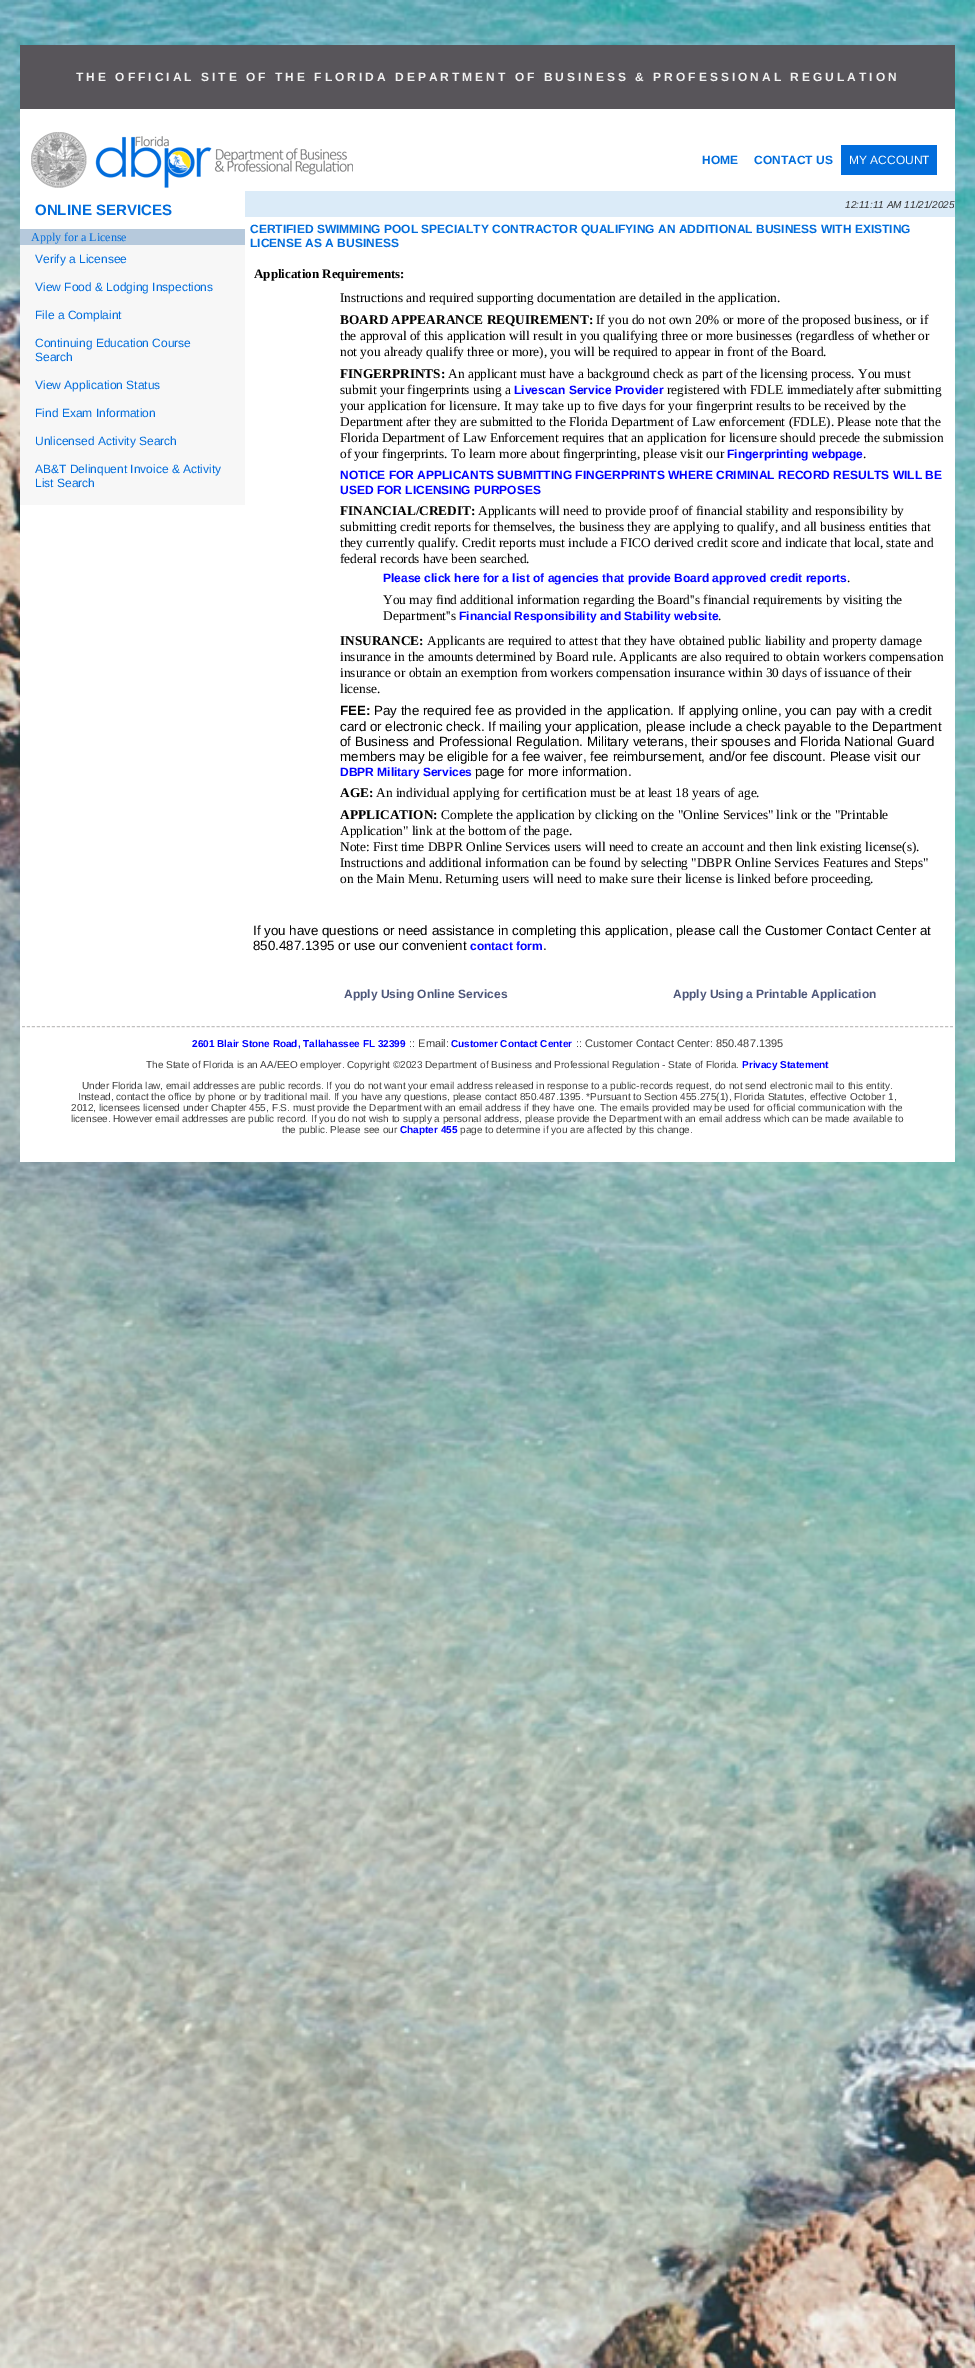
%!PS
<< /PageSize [975 2368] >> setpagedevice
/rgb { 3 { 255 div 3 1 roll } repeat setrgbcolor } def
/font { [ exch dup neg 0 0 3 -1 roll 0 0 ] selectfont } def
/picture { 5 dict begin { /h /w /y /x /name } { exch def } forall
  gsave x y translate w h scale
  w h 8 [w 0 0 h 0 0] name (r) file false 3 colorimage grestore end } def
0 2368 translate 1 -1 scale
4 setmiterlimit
255 255 255 rgb
0 0 975 2368 rectfill
(img/1.rgb) 0 0 975 2368 picture
20 109 935 1053 rectfill
88 85 90 rgb
20 45 935 64 rectfill
(img/2.rgb) 31 132 322 56 picture
[
  [841 145 96 30 1 109 220]
  [20 229 225 16 182 201 220]
  [20 245 225 260 247 247 247]
  [245 191 710 6 219 235 248]
  [245 197 710 20 219 235 248]
] { aload pop rgb rectfill } forall
193 192 191 rgb
[3 1.99] 0 setdash
22 1026.5 moveto 953 1026.5 lineto stroke
/LiberationSans-Bold 12 font
242 242 242 rgb
76 81 moveto 3 0 (THE OFFICIAL SITE OF THE FLORIDA DEPARTMENT OF BUSINESS & PROFESSIONAL REGULATION) ashow
1 109 220 rgb
702 164 moveto (HOME) show
754 164 moveto (CONTACT US) show
/LiberationSans-Regular 12 font
255 255 255 rgb
849 164 moveto (MY ACCOUNT) show
/LiberationSans-Bold 15 font
1 109 220 rgb
35 215 moveto (ONLINE SERVICES) show
/LiberationSerif-Regular 12 font
31 241 moveto (Apply for a License) show
/LiberationSans-Regular 12 font
[
  [(Verify a Licensee) 35 263]
  [(View Food & Lodging Inspections) 35 291]
  [(File a Complaint) 35 319]
  [(Continuing Education Course) 35 347]
  [(Search) 35 361]
  [(View Application Status) 35 389]
  [(Find Exam Information) 35 417]
  [(Unlicensed Activity Search) 35 445]
  [(AB&T Delinquent Invoice & Activity) 35 473]
  [(List Search) 35 487]
] { aload pop moveto show } forall
/LiberationSans-Italic 10 font
51 51 51 rgb
845 208 moveto (12:11:11 AM 11/21/2025) show
/LiberationSans-Bold 12 font
1 109 220 rgb
250 233 moveto (CERTIFIED SWIMMING POOL SPECIALTY CONTRACTOR QUALIFYING AN ADDITIONAL BUSINESS WITH EXISTING) show
250 247 moveto (LICENSE AS A BUSINESS) show
/LiberationSerif-Bold 13 font
0 0 0 rgb
254 278 moveto (Application Requirements:) show
/LiberationSerif-Regular 13.33 font
340 302 moveto (Instructions and required supporting documentation are detailed in the application.) show
/LiberationSerif-Bold 13.33 font
340 324 moveto (BOARD APPEARANCE REQUIREMENT:) show
/LiberationSerif-Regular 13.33 font
[
  [(If you do not own 20% or more of the proposed business, or if) 596 324]
  [(the approval of this application will result in you qualifying three or more businesses \(regardless of whether or) 340 340]
  [(not you already qualify three or more\), you will be required to appear in front of the Board.) 340 356]
] { aload pop moveto show } forall
/LiberationSerif-Bold 13.33 font
340 378 moveto (FINGERPRINTS:) show
/LiberationSerif-Regular 13.33 font
448 378 moveto (An applicant must have a background check as part of the licensing process. You must) show
340 394 moveto (submit your fingerprints using a) show
/LiberationSans-Bold 12 font
0 0 255 rgb
514 394 moveto (Livescan Service Provider) show
/LiberationSerif-Regular 13.33 font
0 0 0 rgb
[
  [(registered with FDLE immediately after submitting) 667 394]
  [(your application for licensure. It may take up to five days for your fingerprint results to be received by the) 340 410]
  [(Department after they are submitted to the Florida Department of Law enforcement \(FDLE\). Please note that the) 340 426]
  [(Florida Department of Law Enforcement requires that an application for licensure should precede the submission) 340 442]
  [(of your fingerprints. To learn more about fingerprinting, please visit our) 340 458]
] { aload pop moveto show } forall
/LiberationSans-Bold 12 font
0 0 255 rgb
727 458 moveto (Fingerprinting webpage) show
/LiberationSerif-Regular 13.33 font
0 0 0 rgb
863 458 moveto (.) show
/LiberationSans-Bold 12 font
0 0 255 rgb
340 479 moveto (NOTICE FOR APPLICANTS SUBMITTING FINGERPRINTS WHERE CRIMINAL RECORD RESULTS WILL BE) show
340 494 moveto (USED FOR LICENSING PURPOSES) show
/LiberationSerif-Bold 13.33 font
0 0 0 rgb
340 515 moveto (FINANCIAL/CREDIT:) show
/LiberationSerif-Regular 13.33 font
[
  [(Applicants will need to provide proof of financial stability and responsibility by) 478 515]
  [(submitting credit reports for themselves, the business they are applying to qualify, and all business entities that) 340 531]
  [(they currently qualify. Credit reports must include a FICO derived credit score and indicate that local, state and) 340 547]
  [(federal records have been searched.) 340 563]
] { aload pop moveto show } forall
/LiberationSans-Bold 12 font
0 0 255 rgb
383 582 moveto (Please click here for a list of agencies that provide Board approved credit reports) show
/LiberationSerif-Regular 13.33 font
0 0 0 rgb
[
  [(.) 847 582]
  [(You may find additional information regarding the Board''s financial requirements by visiting the) 383 604]
  [(Department''s) 383 620]
] { aload pop moveto show } forall
/LiberationSans-Bold 12 font
0 0 255 rgb
459 620 moveto (Financial Responsibility and Stability website) show
/LiberationSerif-Regular 13.33 font
0 0 0 rgb
718 620 moveto (.) show
/LiberationSerif-Bold 13.33 font
340 645 moveto (INSURANCE:) show
/LiberationSerif-Regular 13.33 font
[
  [(Applicants are required to attest that they have obtained public liability and property damage) 427 645]
  [(insurance in the amounts determined by Board rule. Applicants are also required to obtain workers compensation) 340 661]
  [(insurance or obtain an exemption from workers compensation insurance within 30 days of issuance of their) 340 677]
  [(license.) 340 693]
] { aload pop moveto show } forall
/LiberationSans-Bold 13.33 font
340 715 moveto (FEE:) show
/LiberationSans-Regular 13.33 font
[
  [(Pay the required fee as provided in the application. If applying online, you can pay with a credit) 374 715]
  [(card or electronic check. If mailing your application, please include a check payable to the Department) 340 731]
  [(of Business and Professional Regulation. Military veterans, their spouses and Florida National Guard) 340 746]
  [(members may be eligible for a fee waiver, fee reimbursement, and/or fee discount. Please visit our) 340 761]
] { aload pop moveto show } forall
/LiberationSans-Bold 12 font
0 0 255 rgb
340 776 moveto (DBPR Military Services) show
/LiberationSans-Regular 13.33 font
0 0 0 rgb
475 776 moveto (page for more information.) show
/LiberationSerif-Bold 13.33 font
340 797 moveto (AGE:) show
/LiberationSerif-Regular 13.33 font
376 797 moveto (An individual applying for certification must be at least 18 years of age.) show
/LiberationSerif-Bold 13.33 font
340 819 moveto (APPLICATION:) show
/LiberationSerif-Regular 13.33 font
[
  [(Complete the application by clicking on the "Online Services" link or the "Printable) 441 819]
  [(Application" link at the bottom of the page.) 340 835]
  [(Note: First time DBPR Online Services users will need to create an account and then link existing license\(s\).) 340 851]
  [(Instructions and additional information can be found by selecting "DBPR Online Services Features and Steps") 340 867]
  [(on the Main Menu. Returning users will need to make sure their license is linked before proceeding.) 340 883]
] { aload pop moveto show } forall
/LiberationSans-Regular 13.33 font
253 935 moveto (If you have questions or need assistance in completing this application, please call the Customer Contact Center at) show
253 950 moveto (850.487.1395 or use our convenient) show
/LiberationSans-Bold 12 font
0 0 255 rgb
470 950 moveto (contact form) show
/LiberationSans-Regular 13.33 font
0 0 0 rgb
543 950 moveto (.) show
/LiberationSans-Bold 12 font
77 87 122 rgb
344 998 moveto (Apply Using Online Services) show
673 998 moveto (Apply Using a Printable Application) show
/LiberationSans-Bold 10 font
0 0 255 rgb
192 1047 moveto (2601 Blair Stone Road, Tallahassee FL 32399) show
/LiberationSans-Regular 11 font
61 61 61 rgb
409 1047 moveto (:: Email:) show
/LiberationSans-Bold 10 font
0 0 255 rgb
451 1047 moveto (Customer Contact Center) show
/LiberationSans-Regular 11 font
61 61 61 rgb
576 1047 moveto (:: Customer Contact Center: 850.487.1395) show
/LiberationSans-Regular 10 font
146 1068 moveto (The State of Florida is an AA/EEO employer. Copyright ©2023 Department of Business and Professional Regulation - State of Florida.) show
/LiberationSans-Bold 10 font
0 0 255 rgb
742 1068 moveto (Privacy Statement) show
/LiberationSans-Regular 10 font
61 61 61 rgb
[
  [(Under Florida law, email addresses are public records. If you do not want your email address released in response to a public-records request, do not send electronic mail to this entity.) 82 1089]
  [(Instead, contact the office by phone or by traditional mail. If you have any questions, please contact 850.487.1395. *Pursuant to Section 455.275\(1\), Florida Statutes, effective October 1,) 78 1100]
  [(2012, licensees licensed under Chapter 455, F.S. must provide the Department with an email address if they have one. The emails provided may be used for official communication with the) 71 1111]
  [(licensee. However email addresses are public record. If you do not wish to supply a personal address, please provide the Department with an email address which can be made available to) 71 1122]
  [(the public. Please see our) 282 1133]
] { aload pop moveto show } forall
/LiberationSans-Bold 10 font
0 0 255 rgb
400 1133 moveto (Chapter 455) show
/LiberationSans-Regular 10 font
61 61 61 rgb
460 1133 moveto (page to determine if you are affected by this change.) show
showpage
